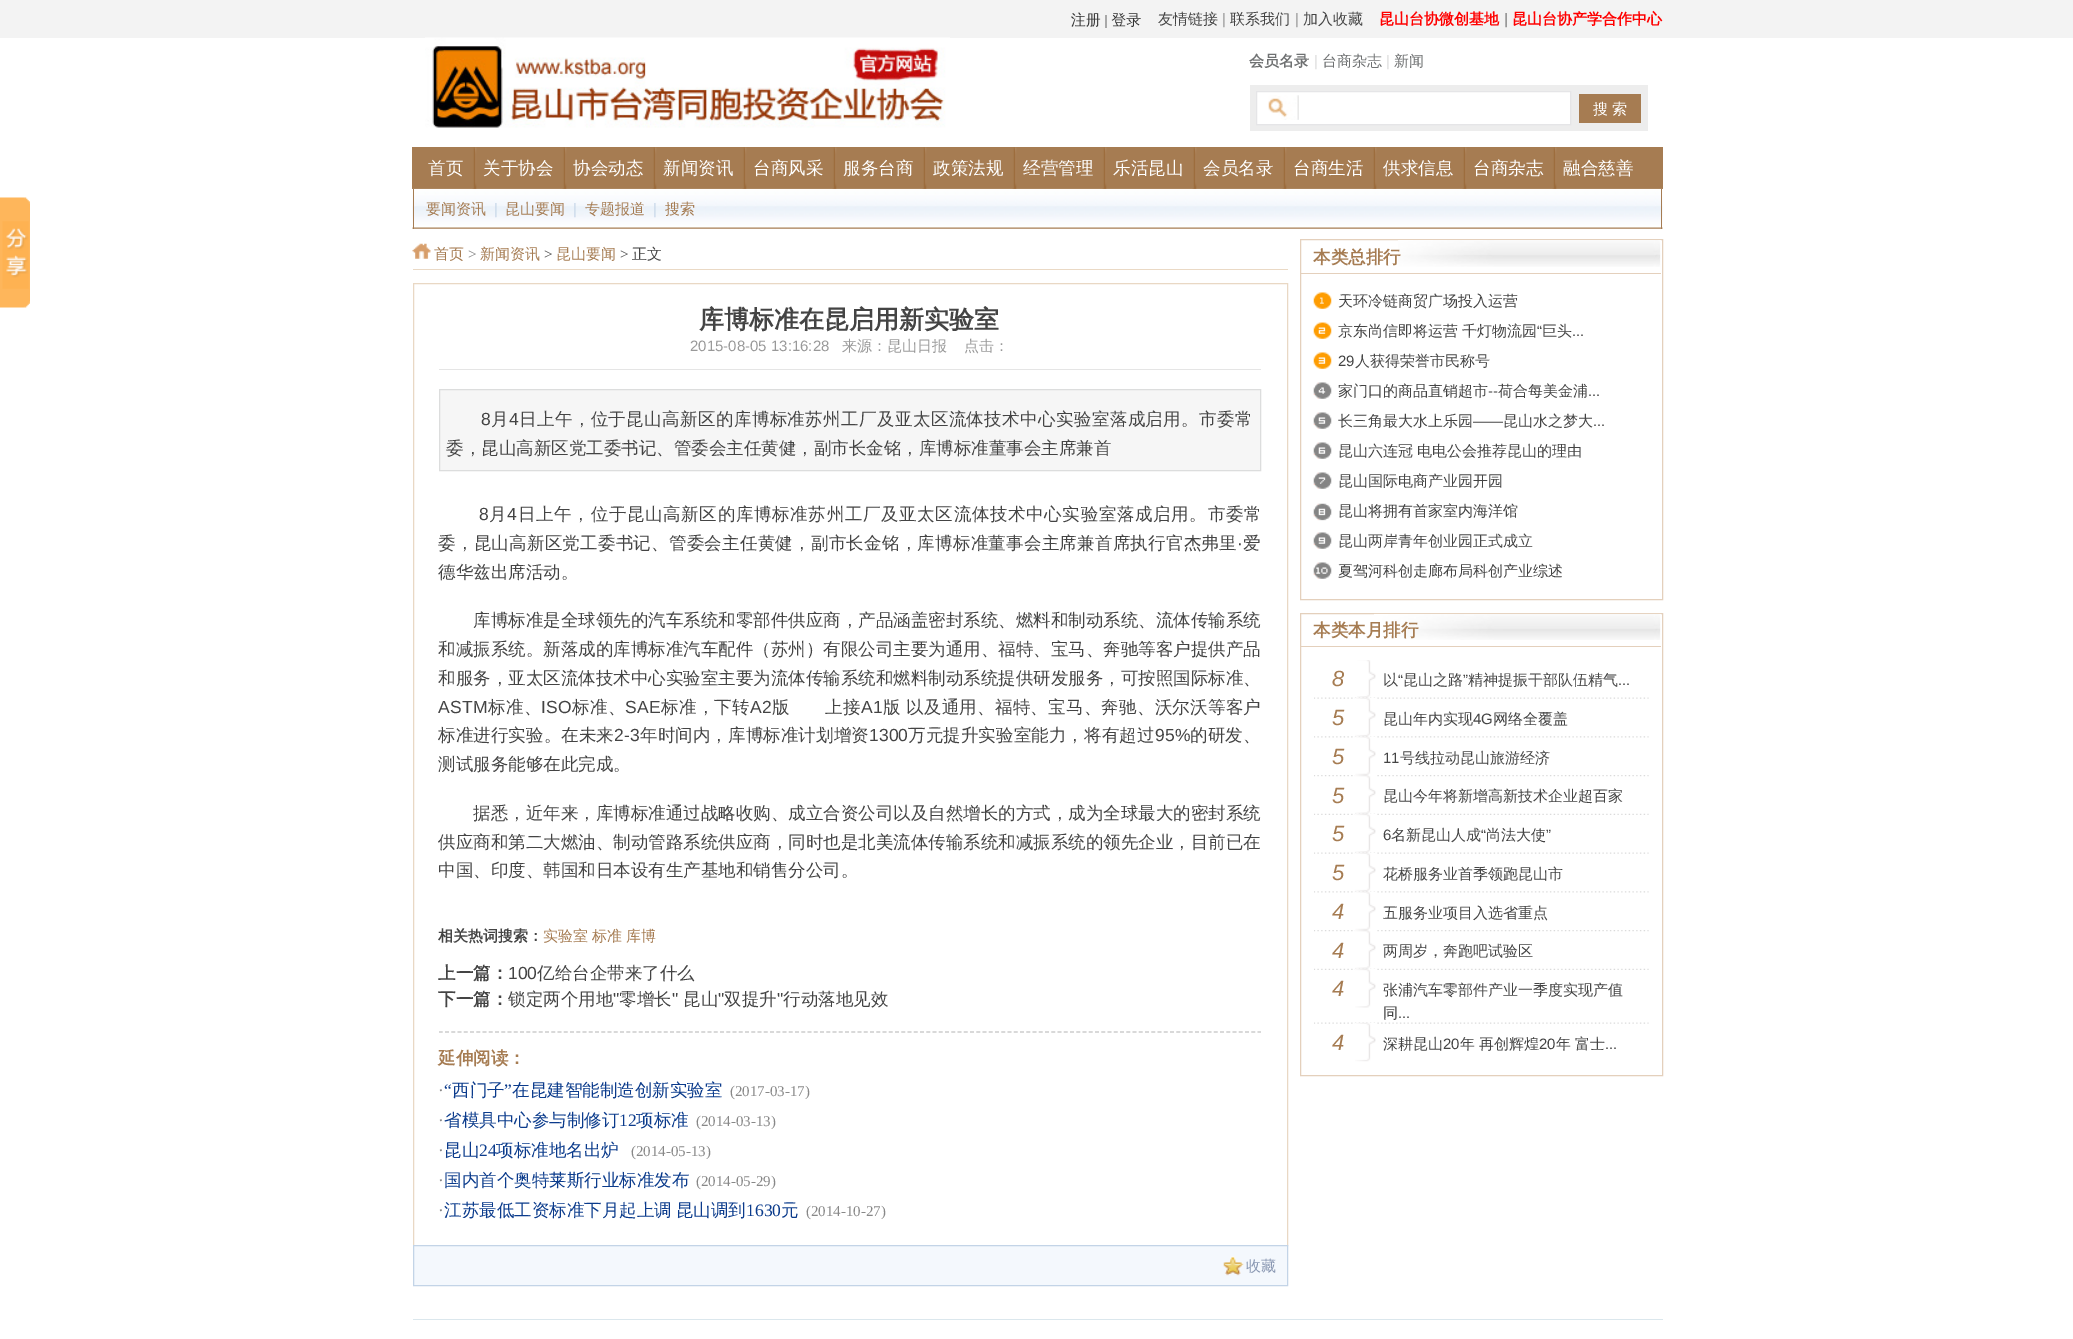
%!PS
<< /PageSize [2073 1339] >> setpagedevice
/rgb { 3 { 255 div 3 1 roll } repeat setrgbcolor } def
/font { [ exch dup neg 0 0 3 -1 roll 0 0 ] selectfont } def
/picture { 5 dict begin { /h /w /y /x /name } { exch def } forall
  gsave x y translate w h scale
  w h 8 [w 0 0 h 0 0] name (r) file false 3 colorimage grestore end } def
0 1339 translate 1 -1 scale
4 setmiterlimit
255 255 255 rgb
0 0 2073 1339 rectfill
243 243 243 rgb
0 0 2073 38 rectfill
(img/1.rgb) 1071 12 70 16 picture
(img/2.rgb) 425 37 525 91 picture
237 237 237 rgb
1250 85 398 46 rectfill
255 255 255 rgb
1257 92 313 32 rectfill
(img/3.rgb) 1268 95 31 25 picture
229 229 231 rgb
1256.5 91.5 314 33 rectstroke
[
  [1579 94 62 29 166 124 82]
  [412 147 12 42 166 124 82]
  [424 147 1239 42 166 124 82]
] { aload pop rgb rectfill } forall
(img/6.rgb) 412 188 1251 41 picture
(img/4.rgb) 472 147 5 42 picture
(img/4.rgb) 562 147 5 42 picture
(img/5.rgb) 652 147 5 42 picture
(img/4.rgb) 742 147 5 42 picture
(img/4.rgb) 832 147 5 42 picture
(img/5.rgb) 922 147 5 42 picture
(img/4.rgb) 1012 147 5 42 picture
(img/4.rgb) 1102 147 5 42 picture
(img/5.rgb) 1192 147 5 42 picture
(img/5.rgb) 1282 147 5 42 picture
(img/5.rgb) 1372 147 5 42 picture
(img/5.rgb) 1462 147 5 42 picture
(img/4.rgb) 1552 147 5 42 picture
1661 189 1 40 rectfill
413 189 1 40 rectfill
(img/7.rgb) 0 197 30 111 picture
(img/8.rgb) 412 243 19 16 picture
234 217 197 rgb
413 269 875 1 rectfill
233 216 196 rgb
413.5 283.5 874 962 rectstroke
229 229 229 rgb
439 369 822 1 rectfill
246 246 246 rgb
439.5 389.5 moveto 1260.5 389.5 lineto 1260.5 470.5 lineto 439.5 470.5 lineto closepath gsave fill grestore
220 221 221 rgb
stroke
204 204 204 rgb
1.2 setlinewidth
[3.75 2.5] 0 setdash
439 1032 moveto 1261 1032 lineto stroke
244 248 253 rgb
413.5 1245.5 moveto 1287.5 1245.5 lineto 1287.5 1285.5 lineto 413.5 1285.5 lineto closepath gsave fill grestore
195 212 231 rgb
1 setlinewidth
[] 0 setdash
stroke
(img/9.rgb) 1223 1256 21 20 picture
228 208 188 rgb
1300.5 239.5 362 360 rectstroke
(img/10.rgb) 1398 240 263 27 picture
1301 273 360 1 rectfill
(img/11.rgb) 1313 292 19 287 picture
1300.5 613.5 362 462 rectstroke
(img/12.rgb) 1374 613 287 27 picture
1301 646 360 1 rectfill
(img/13.rgb) 1357 660 19 38 picture
(img/14.rgb) 1314 697 335 2 picture
(img/15.rgb) 1355 697 21 40 picture
(img/16.rgb) 1314 736 335 2 picture
(img/17.rgb) 1355 736 21 39 picture
(img/18.rgb) 1314 775 335 2 picture
(img/19.rgb) 1355 775 21 39 picture
(img/20.rgb) 1314 813 335 2 picture
(img/21.rgb) 1355 814 21 39 picture
(img/22.rgb) 1314 852 335 2 picture
(img/23.rgb) 1355 852 21 40 picture
(img/16.rgb) 1314 891 335 2 picture
(img/17.rgb) 1355 891 21 39 picture
(img/18.rgb) 1314 930 335 2 picture
(img/24.rgb) 1355 930 21 39 picture
(img/20.rgb) 1314 968 335 2 picture
(img/21.rgb) 1355 969 21 39 picture
(img/25.rgb) 1314 1022 335 2 picture
(img/26.rgb) 1355 1022 21 40 picture
219 231 237 rgb
413 1319 1250 1 rectfill
/WenQuanYiZenHei-Medium 15 font
68 68 68 rgb
1158 24 moveto (友情链接) show
/LiberationSans-Regular 15 font
153 153 153 rgb
1222 24 moveto (|) show
/WenQuanYiZenHei-Medium 15 font
68 68 68 rgb
1230 24 moveto (联系我们) show
/LiberationSans-Regular 15 font
153 153 153 rgb
1295 24 moveto (|) show
/WenQuanYiZenHei-Medium 15 font
68 68 68 rgb
1303 24 moveto (加入收藏) show
/WenQuanYiZenHei-Bold 15 font
255 0 0 rgb
1379 24 moveto (昆山台协微创基地) show
/LiberationSans-Bold 15 font
153 153 153 rgb
1504 24 moveto (|) show
/WenQuanYiZenHei-Bold 15 font
255 0 0 rgb
1512 24 moveto (昆山台协产学合作中心) show
111 113 114 rgb
1249 66 moveto (会员名录) show
/LiberationSans-Regular 15 font
221 221 221 rgb
1314 66 moveto (|) show
/WenQuanYiZenHei-Medium 15 font
111 113 114 rgb
1322 66 moveto (台商杂志) show
/LiberationSans-Regular 15 font
221 221 221 rgb
1386 66 moveto (|) show
/WenQuanYiZenHei-Medium 15 font
111 113 114 rgb
1394 66 moveto (新闻) show
255 255 255 rgb
1593 114 moveto (搜 索) show
/WenQuanYiZenHei-Medium 17.5 font
[
  [(首页) 428 174]
  [(关于协会) 483 174]
  [(协会动态) 573 174]
  [(新闻资讯) 663 174]
  [(台商风采) 753 174]
  [(服务台商) 843 174]
  [(政策法规) 933 174]
  [(经营管理) 1023 174]
  [(乐活昆山) 1113 174]
  [(会员名录) 1203 174]
  [(台商生活) 1293 174]
  [(供求信息) 1383 174]
  [(台商杂志) 1473 174]
  [(融合慈善) 1563 174]
] { aload pop moveto show } forall
/WenQuanYiZenHei-Medium 15 font
166 124 82 rgb
426 214 moveto (要闻资讯) show
/LiberationSans-Regular 15 font
200 216 233 rgb
494 214 moveto (|) show
/WenQuanYiZenHei-Medium 15 font
166 124 82 rgb
505 214 moveto (昆山要闻) show
/LiberationSans-Regular 15 font
200 216 233 rgb
573 214 moveto (|) show
/WenQuanYiZenHei-Medium 15 font
166 124 82 rgb
585 214 moveto (专题报道) show
/LiberationSans-Regular 15 font
200 216 233 rgb
653 214 moveto (|) show
/WenQuanYiZenHei-Medium 15 font
166 124 82 rgb
665 214 moveto (搜索) show
434 259 moveto (首页) show
/LiberationSerif-Regular 15 font
126 126 126 rgb
468 259 moveto (>) show
/WenQuanYiZenHei-Medium 15 font
166 124 82 rgb
480 259 moveto (新闻资讯) show
/LiberationSerif-Regular 15 font
68 68 68 rgb
544 259 moveto (>) show
/WenQuanYiZenHei-Medium 15 font
166 124 82 rgb
556 259 moveto (昆山要闻) show
/LiberationSerif-Regular 15 font
68 68 68 rgb
620 259 moveto (>) show
/WenQuanYiZenHei-Medium 15 font
632 259 moveto (正文) show
/WenQuanYiZenHei-Bold 25 font
699 328 moveto (库博标准在昆启用新实验室) show
/LiberationSans-Regular 15 font
153 153 153 rgb
690 351 moveto (2015-08-05 13:16:28) show
/WenQuanYiZenHei-Medium 15 font
842 351 moveto (来源：昆山日报) show
964 351 moveto (点击：) show
/LiberationSans-Regular 17.5 font
68 68 68 rgb
481 425 moveto 0.4 0 (8) ashow
/WenQuanYiZenHei-Medium 17.5 font
491 425 moveto 0.4 0 (月) ashow
/LiberationSans-Regular 17.5 font
509 425 moveto 0.4 0 (4) ashow
/WenQuanYiZenHei-Medium 17.5 font
519 425 moveto 0.4 0 (日上午，位于昆山高新区的库博标准苏州工厂及亚太区流体技术中心实验室落成启用。市委常) ashow
446 454 moveto (委，昆山高新区党工委书记、管委会主任黄健，副市长金铭，库博标准董事会主席兼首) show
/LiberationSans-Regular 17.5 font
479 520 moveto 0.65 0 (8) ashow
/WenQuanYiZenHei-Medium 17.5 font
489 520 moveto 0.65 0 (月) ashow
/LiberationSans-Regular 17.5 font
507 520 moveto 0.65 0 (4) ashow
/WenQuanYiZenHei-Medium 17.5 font
518 520 moveto 0.65 0 (日上午，位于昆山高新区的库博标准苏州工厂及亚太区流体技术中心实验室落成启用。市委常) ashow
438 549 moveto 0.25 0 (委，昆山高新区党工委书记、管委会主任黄健，副市长金铭，库博标准董事会主席兼首席执行官杰弗里) ashow
/LiberationSans-Regular 17.5 font
1237 549 moveto 0.25 0 (·) ashow
/WenQuanYiZenHei-Medium 17.5 font
1243 549 moveto 0.25 0 (爱) ashow
[
  [(德华兹出席活动。) 438 578]
  [(库博标准是全球领先的汽车系统和零部件供应商，产品涵盖密封系统、燃料和制动系统、流体传输系统) 473 626]
  [(和减振系统。新落成的库博标准汽车配件（苏州）有限公司主要为通用、福特、宝马、奔驰等客户提供产品) 438 655]
  [(和服务，亚太区流体技术中心实验室主要为流体传输系统和燃料制动系统提供研发服务，可按照国际标准、) 438 684]
] { aload pop moveto show } forall
/LiberationSans-Regular 17.5 font
438 713 moveto 0.25 0 (ASTM) ashow
/WenQuanYiZenHei-Medium 17.5 font
488 713 moveto 0.25 0 (标准、) ashow
/LiberationSans-Regular 17.5 font
541 713 moveto 0.25 0 (ISO) ashow
/WenQuanYiZenHei-Medium 17.5 font
572 713 moveto 0.25 0 (标准、) ashow
/LiberationSans-Regular 17.5 font
625 713 moveto 0.25 0 (SAE) ashow
/WenQuanYiZenHei-Medium 17.5 font
661 713 moveto 0.25 0 (标准，下转) ashow
/LiberationSans-Regular 17.5 font
750 713 moveto 0.25 0 (A2) ashow
/WenQuanYiZenHei-Medium 17.5 font
772 713 moveto 0.25 0 (版　　上接) ashow
/LiberationSans-Regular 17.5 font
861 713 moveto 0.25 0 (A1) ashow
/WenQuanYiZenHei-Medium 17.5 font
883 713 moveto 0.25 0 (版 以及通用、福特、宝马、奔驰、沃尔沃等客户) ashow
438 741 moveto 0.1 0 (标准进行实验。在未来) ashow
/LiberationSans-Regular 17.5 font
614 741 moveto 0.1 0 (2-3) ashow
/WenQuanYiZenHei-Medium 17.5 font
640 741 moveto 0.1 0 (年时间内，库博标准计划增资) ashow
/LiberationSans-Regular 17.5 font
869 741 moveto 0.1 0 (1300) ashow
/WenQuanYiZenHei-Medium 17.5 font
908 741 moveto 0.1 0 (万元提升实验室能力，将有超过) ashow
/LiberationSans-Regular 17.5 font
1155 741 moveto 0.1 0 (95%) ashow
/WenQuanYiZenHei-Medium 17.5 font
1190 741 moveto 0.1 0 (的研发、) ashow
[
  [(测试服务能够在此完成。) 438 770]
  [(据悉，近年来，库博标准通过战略收购、成立合资公司以及自然增长的方式，成为全球最大的密封系统) 473 819]
  [(供应商和第二大燃油、制动管路系统供应商，同时也是北美流体传输系统和减振系统的领先企业，目前已在) 438 848]
  [(中国、印度、韩国和日本设有生产基地和销售分公司。) 438 876]
] { aload pop moveto show } forall
/WenQuanYiZenHei-Bold 15 font
438 941 moveto (相关热词搜索：) show
/WenQuanYiZenHei-Medium 15 font
166 124 82 rgb
[
  [(实验室) 543 941]
  [(标准) 592 941]
  [(库博) 626 941]
] { aload pop moveto show } forall
/WenQuanYiZenHei-Bold 17.5 font
68 68 68 rgb
438 979 moveto (上一篇：) show
/LiberationSans-Regular 17.5 font
508 979 moveto (100) show
/WenQuanYiZenHei-Medium 17.5 font
537 979 moveto (亿给台企带来了什么) show
/WenQuanYiZenHei-Bold 17.5 font
438 1005 moveto (下一篇：) show
/WenQuanYiZenHei-Medium 17.5 font
508 1005 moveto (锁定两个用地) show
/LiberationSans-Regular 17.5 font
613 1005 moveto (") show
/WenQuanYiZenHei-Medium 17.5 font
619 1005 moveto (零增长) show
/LiberationSans-Regular 17.5 font
672 1005 moveto (") show
/WenQuanYiZenHei-Medium 17.5 font
683 1005 moveto (昆山) show
/LiberationSans-Regular 17.5 font
718 1005 moveto (") show
/WenQuanYiZenHei-Medium 17.5 font
724 1005 moveto (双提升) show
/LiberationSans-Regular 17.5 font
777 1005 moveto (") show
/WenQuanYiZenHei-Medium 17.5 font
783 1005 moveto (行动落地见效) show
/WenQuanYiZenHei-Bold 17.5 font
166 124 82 rgb
438 1064 moveto (延伸阅读：) show
/LiberationSerif-Regular 17.5 font
136 136 136 rgb
438 1096 moveto (·) show
11 59 140 rgb
444 1096 moveto (“) show
/WenQuanYiZenHei-Medium 17.5 font
452 1096 moveto (西门子) show
/LiberationSerif-Regular 17.5 font
504 1096 moveto (”) show
/WenQuanYiZenHei-Medium 17.5 font
512 1096 moveto (在昆建智能制造创新实验室) show
/LiberationSerif-Regular 15 font
136 136 136 rgb
730 1096 moveto (\(2017-03-17\)) show
/LiberationSerif-Regular 17.5 font
438 1126 moveto (·) show
/WenQuanYiZenHei-Medium 17.5 font
11 59 140 rgb
444 1126 moveto (省模具中心参与制修订) show
/LiberationSerif-Regular 17.5 font
619 1126 moveto (12) show
/WenQuanYiZenHei-Medium 17.5 font
636 1126 moveto (项标准) show
/LiberationSerif-Regular 15 font
136 136 136 rgb
696 1126 moveto (\(2014-03-13\)) show
/LiberationSerif-Regular 17.5 font
438 1156 moveto (·) show
/WenQuanYiZenHei-Medium 17.5 font
11 59 140 rgb
444 1156 moveto (昆山) show
/LiberationSerif-Regular 17.5 font
479 1156 moveto (24) show
/WenQuanYiZenHei-Medium 17.5 font
496 1156 moveto (项标准地名出炉) show
/LiberationSerif-Regular 15 font
136 136 136 rgb
631 1156 moveto (\(2014-05-13\)) show
/LiberationSerif-Regular 17.5 font
438 1186 moveto (·) show
/WenQuanYiZenHei-Medium 17.5 font
11 59 140 rgb
444 1186 moveto (国内首个奥特莱斯行业标准发布) show
/LiberationSerif-Regular 15 font
136 136 136 rgb
696 1186 moveto (\(2014-05-29\)) show
/LiberationSerif-Regular 17.5 font
438 1216 moveto (·) show
/WenQuanYiZenHei-Medium 17.5 font
11 59 140 rgb
444 1216 moveto -1 0 32 (江苏最低工资标准下月起上调 昆山调到) widthshow
/LiberationSerif-Regular 17.5 font
746 1216 moveto (1630) show
/WenQuanYiZenHei-Medium 17.5 font
781 1216 moveto (元) show
/LiberationSerif-Regular 15 font
136 136 136 rgb
806 1216 moveto (\(2014-10-27\)) show
/WenQuanYiZenHei-Medium 15 font
136 150 177 rgb
1246 1271 moveto (收藏) show
/WenQuanYiZenHei-Bold 17.5 font
166 124 82 rgb
1313 263 moveto (本类总排行) show
/WenQuanYiZenHei-Medium 15 font
68 68 68 rgb
1338 306 moveto (天环冷链商贸广场投入运营) show
1338 336 moveto (京东尚信即将运营 千灯物流园) show
/LiberationSans-Regular 15 font
1537 336 moveto (“) show
/WenQuanYiZenHei-Medium 15 font
1542 336 moveto (巨头) show
/LiberationSans-Regular 15 font
1572 336 moveto (...) show
1338 366 moveto (29) show
/WenQuanYiZenHei-Medium 15 font
1355 366 moveto (人获得荣誉市民称号) show
1338 396 moveto (家门口的商品直销超市) show
/LiberationSans-Regular 15 font
1488 396 moveto (--) show
/WenQuanYiZenHei-Medium 15 font
1498 396 moveto (荷合每美金浦) show
/LiberationSans-Regular 15 font
1588 396 moveto (...) show
/WenQuanYiZenHei-Medium 15 font
1338 426 moveto (长三角最大水上乐园) show
/LiberationSans-Regular 15 font
1473 426 moveto (——) show
/WenQuanYiZenHei-Medium 15 font
1503 426 moveto (昆山水之梦大) show
/LiberationSans-Regular 15 font
1593 426 moveto (...) show
/WenQuanYiZenHei-Medium 15 font
[
  [(昆山六连冠) 1338 456]
  [(电电公会推荐昆山的理由) 1417 456]
  [(昆山国际电商产业园开园) 1338 486]
  [(昆山将拥有首家室内海洋馆) 1338 516]
  [(昆山两岸青年创业园正式成立) 1338 546]
  [(夏驾河科创走廊布局科创产业综述) 1338 576]
] { aload pop moveto show } forall
/WenQuanYiZenHei-Bold 17.5 font
166 124 82 rgb
1313 636 moveto (本类本月排行) show
/LiberationSans-Italic 22 font
1332 686 moveto (8) show
/WenQuanYiZenHei-Medium 15 font
68 68 68 rgb
1383 685 moveto (以) show
/LiberationSans-Regular 15 font
1398 685 moveto (“) show
/WenQuanYiZenHei-Medium 15 font
1403 685 moveto (昆山之路) show
/LiberationSans-Regular 15 font
1463 685 moveto (”) show
/WenQuanYiZenHei-Medium 15 font
1468 685 moveto (精神提振干部队伍精气) show
/LiberationSans-Regular 15 font
1618 685 moveto (...) show
/LiberationSans-Italic 22 font
166 124 82 rgb
1332 725 moveto (5) show
/WenQuanYiZenHei-Medium 15 font
68 68 68 rgb
1383 724 moveto (昆山年内实现) show
/LiberationSans-Regular 15 font
1473 724 moveto (4G) show
/WenQuanYiZenHei-Medium 15 font
1493 724 moveto (网络全覆盖) show
/LiberationSans-Italic 22 font
166 124 82 rgb
1332 764 moveto (5) show
/LiberationSans-Regular 15 font
68 68 68 rgb
1383 763 moveto (11) show
/WenQuanYiZenHei-Medium 15 font
1400 763 moveto (号线拉动昆山旅游经济) show
/LiberationSans-Italic 22 font
166 124 82 rgb
1332 803 moveto (5) show
/WenQuanYiZenHei-Medium 15 font
68 68 68 rgb
1383 801 moveto (昆山今年将新增高新技术企业超百家) show
/LiberationSans-Italic 22 font
166 124 82 rgb
1332 841 moveto (5) show
/LiberationSans-Regular 15 font
68 68 68 rgb
1383 840 moveto (6) show
/WenQuanYiZenHei-Medium 15 font
1391 840 moveto (名新昆山人成) show
/LiberationSans-Regular 15 font
1481 840 moveto (“) show
/WenQuanYiZenHei-Medium 15 font
1486 840 moveto (尚法大使) show
/LiberationSans-Regular 15 font
1546 840 moveto (”) show
/LiberationSans-Italic 22 font
166 124 82 rgb
1332 880 moveto (5) show
/WenQuanYiZenHei-Medium 15 font
68 68 68 rgb
1383 879 moveto (花桥服务业首季领跑昆山市) show
/LiberationSans-Italic 22 font
166 124 82 rgb
1332 919 moveto (4) show
/WenQuanYiZenHei-Medium 15 font
68 68 68 rgb
1383 918 moveto (五服务业项目入选省重点) show
/LiberationSans-Italic 22 font
166 124 82 rgb
1332 958 moveto (4) show
/WenQuanYiZenHei-Medium 15 font
68 68 68 rgb
1383 956 moveto (两周岁，奔跑吧试验区) show
/LiberationSans-Italic 22 font
166 124 82 rgb
1332 996 moveto (4) show
/WenQuanYiZenHei-Medium 15 font
68 68 68 rgb
1383 995 moveto (张浦汽车零部件产业一季度实现产值) show
1383 1018 moveto (同) show
/LiberationSans-Regular 15 font
1398 1018 moveto (...) show
/LiberationSans-Italic 22 font
166 124 82 rgb
1332 1050 moveto (4) show
/WenQuanYiZenHei-Medium 15 font
68 68 68 rgb
1383 1049 moveto (深耕昆山) show
/LiberationSans-Regular 15 font
1443 1049 moveto (20) show
/WenQuanYiZenHei-Medium 15 font
1460 1049 moveto (年 再创辉煌) show
/LiberationSans-Regular 15 font
1539 1049 moveto (20) show
/WenQuanYiZenHei-Medium 15 font
1556 1049 moveto (年) show
1575 1049 moveto (富士) show
/LiberationSans-Regular 15 font
1605 1049 moveto (...) show
showpage
